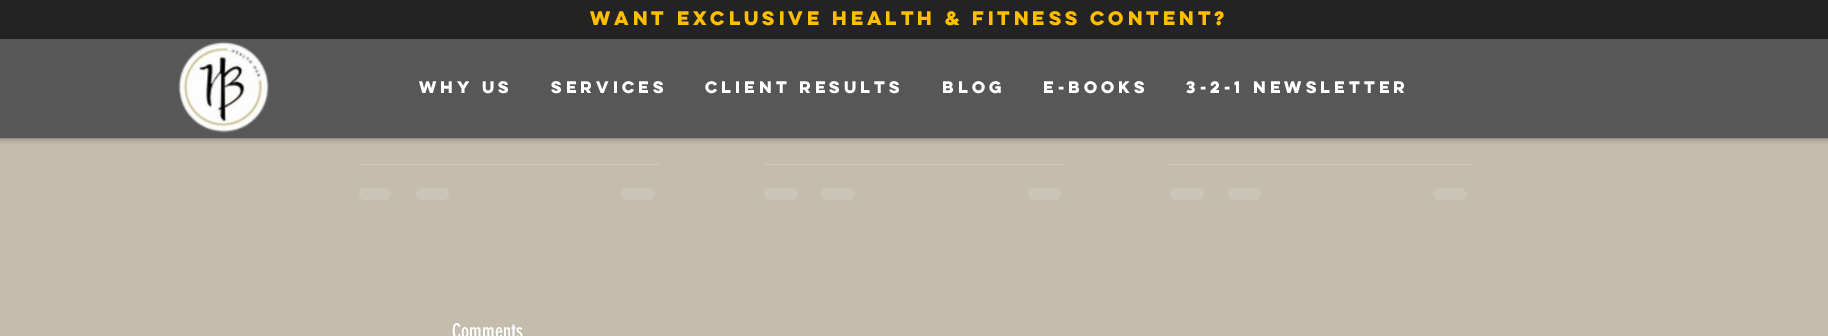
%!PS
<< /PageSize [1828 336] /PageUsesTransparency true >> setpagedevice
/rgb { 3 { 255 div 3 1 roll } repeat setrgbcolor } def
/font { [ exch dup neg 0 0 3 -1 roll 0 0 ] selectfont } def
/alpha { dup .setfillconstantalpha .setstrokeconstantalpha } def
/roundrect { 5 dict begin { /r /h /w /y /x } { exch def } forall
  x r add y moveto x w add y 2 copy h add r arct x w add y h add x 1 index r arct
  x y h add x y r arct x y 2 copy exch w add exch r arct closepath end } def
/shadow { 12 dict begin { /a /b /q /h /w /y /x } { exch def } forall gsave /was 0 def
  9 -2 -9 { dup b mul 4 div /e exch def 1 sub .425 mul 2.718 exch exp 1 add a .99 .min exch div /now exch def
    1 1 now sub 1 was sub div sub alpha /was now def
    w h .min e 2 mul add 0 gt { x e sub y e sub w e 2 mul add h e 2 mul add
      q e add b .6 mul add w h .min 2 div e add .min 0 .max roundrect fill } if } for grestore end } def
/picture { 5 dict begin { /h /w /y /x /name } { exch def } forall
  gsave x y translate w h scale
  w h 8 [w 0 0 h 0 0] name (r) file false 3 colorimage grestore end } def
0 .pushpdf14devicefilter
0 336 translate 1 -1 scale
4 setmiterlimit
196 189 173 rgb
0 0 1828 336 rectfill
0 0 0 rgb
0 0 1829 138 0 3 0.5 shadow
87 87 87 rgb
0 39 1828 99 rectfill
36 35 35 rgb
0 0 1828 39 rectfill
(img/1.rgb) 178 41 91 92 picture
208 202 189 rgb
359 164 300 1 rectfill
203 197 183 rgb
359 188 32 12 6 roundrect fill
416 188 33 12 6 roundrect fill
621 188 34 12 6 roundrect fill
208 202 189 rgb
764 164 301 1 rectfill
203 197 183 rgb
764 188 34 12 6 roundrect fill
821 188 34 12 6 roundrect fill
1028 188 33 12 6 roundrect fill
208 202 189 rgb
1170 164 300 1 rectfill
203 197 183 rgb
1170 188 34 12 6 roundrect fill
1228 188 33 12 6 roundrect fill
1433 188 33 12 6 roundrect fill
/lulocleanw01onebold-Bold 17.5 font
255 191 0 rgb
590 25 moveto (WANT EXCLUSIVE HEALTH & FITNESS CONTENT?) show
/lulocleanw01onebold-Bold 15 font
255 255 255 rgb
419 93 moveto 0.75 0 (WHY US) ashow
551 93 moveto 0.75 0 (SERVICES) ashow
705 93 moveto 0.75 0 (CLIENT RESULTS) ashow
942 93 moveto 0.75 0 (BLOG) ashow
1043 93 moveto 0.75 0 (E-BOOKS) ashow
1186 93 moveto 0.75 0 (3-2-1 NEWSLETTER) ashow
/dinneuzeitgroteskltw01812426-Regular 20 font
452 338 moveto (Comments) show
.poppdf14devicefilter showpage
